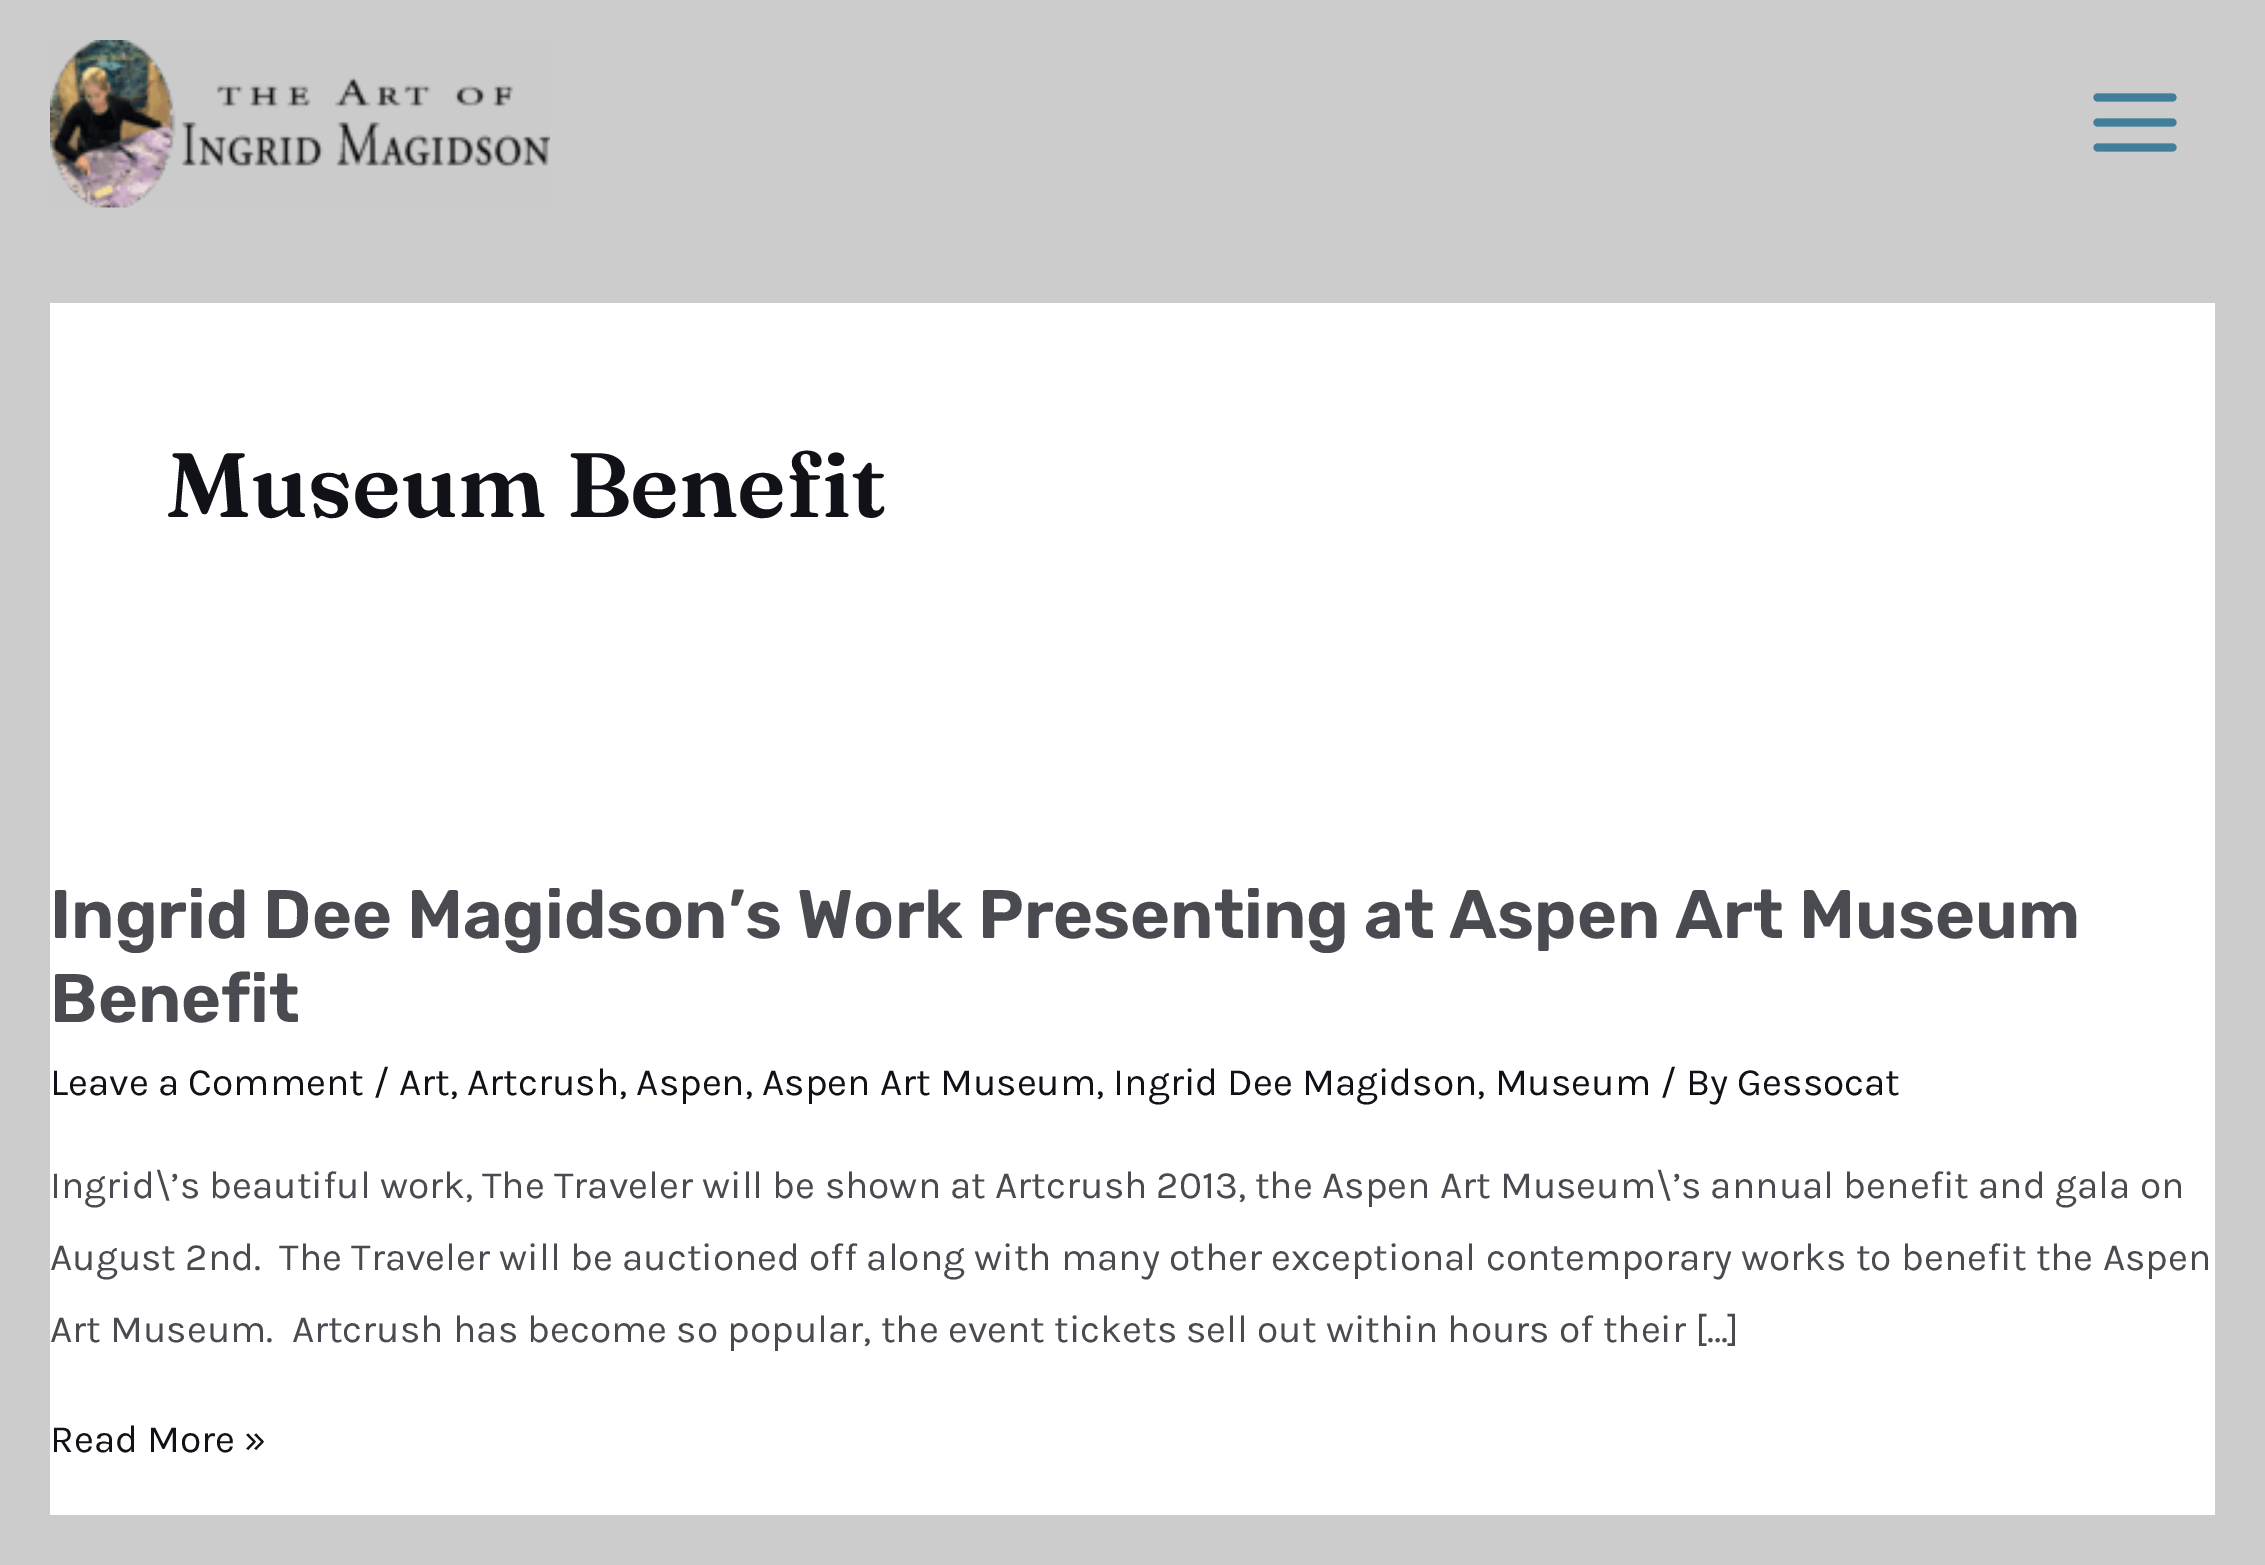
%!PS
<< /PageSize [2265 1565] >> setpagedevice
/rgb { 3 { 255 div 3 1 roll } repeat setrgbcolor } def
/font { [ exch dup neg 0 0 3 -1 roll 0 0 ] selectfont } def
/picture { 5 dict begin { /h /w /y /x /name } { exch def } forall
  gsave x y translate w h scale
  w h 8 [w 0 0 h 0 0] name (r) file false 3 colorimage grestore end } def
0 1565 translate 1 -1 scale
4 setmiterlimit
204 204 204 rgb
0 0 2265 1565 rectfill
(img/1.rgb) 50 40 500 168 picture
(img/2.rgb) 2093 93 84 59 picture
255 255 255 rgb
50 303 2165 1212 rectfill
/Fraunces-SemiBold 91.25 font
16 18 24 rgb
166 517 moveto (Museum Benefit) show
/Rubik-SemiBold 68.4 font
73 75 81 rgb
50 938 moveto -0.25 0 32 (Ingrid Dee Magidson’s Work Presenting at Aspen Art Museum) widthshow
50 1022 moveto (Benefit) show
/Karla-Regular 38.75 font
16 18 24 rgb
50 1095 moveto (Leave a Comment / Art, Artcrush, Aspen, Aspen Art Museum, Ingrid Dee Magidson, Museum / By Gessocat) show
73 75 81 rgb
[
  [(Ingrid\\’s beautiful work, The Traveler will be shown at Artcrush 2013, the Aspen Art Museum\\’s annual benefit and gala on) 50 1198]
  [(August 2nd.  The Traveler will be auctioned off along with many other exceptional contemporary works to benefit the Aspen) 50 1270]
  [(Art Museum.  Artcrush has become so popular, the event tickets sell out within hours of their […]) 50 1342]
] { aload pop moveto show } forall
16 18 24 rgb
50 1452 moveto (Read More ») show
showpage
